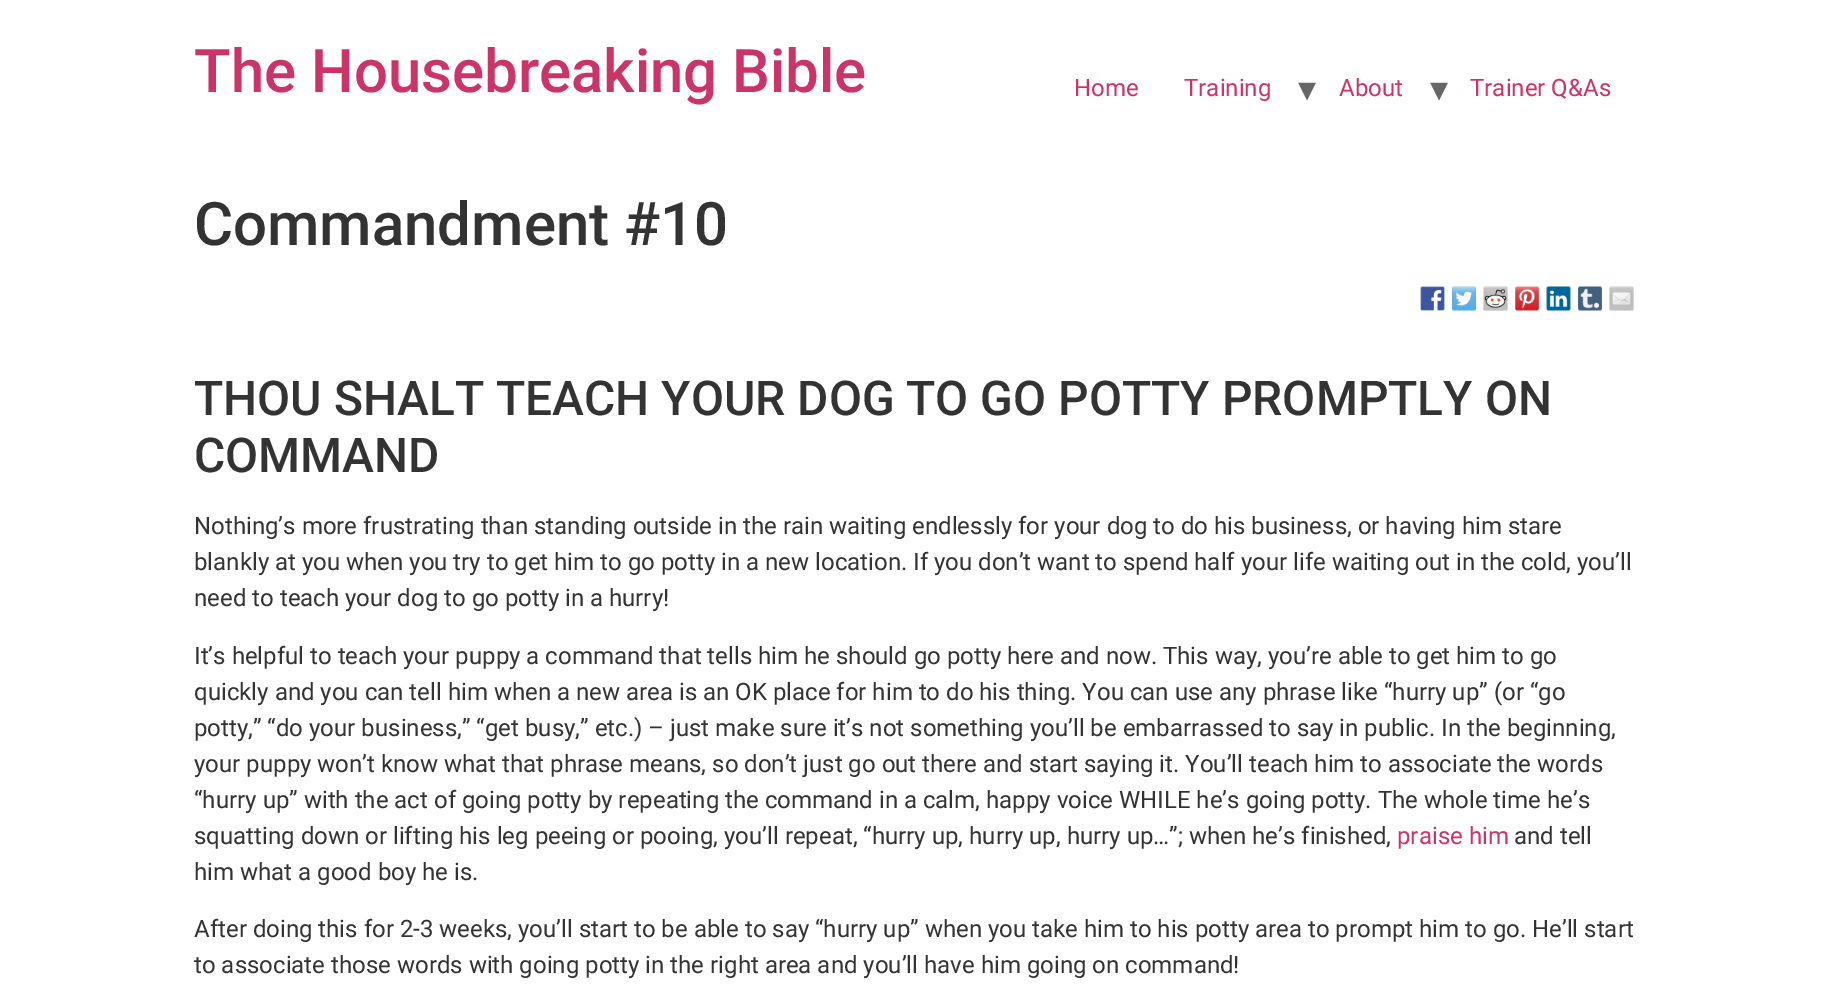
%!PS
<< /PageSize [1826 986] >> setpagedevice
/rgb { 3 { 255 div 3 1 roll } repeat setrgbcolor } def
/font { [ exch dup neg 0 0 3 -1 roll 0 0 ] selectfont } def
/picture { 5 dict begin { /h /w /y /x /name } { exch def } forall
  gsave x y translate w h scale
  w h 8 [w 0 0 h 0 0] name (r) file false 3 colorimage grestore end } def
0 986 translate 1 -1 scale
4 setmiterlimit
255 255 255 rgb
0 0 1826 986 rectfill
(img/1.rgb) 1420 286 25 25 picture
(img/2.rgb) 1452 286 24 25 picture
(img/3.rgb) 1483 286 25 25 picture
(img/4.rgb) 1515 286 24 25 picture
(img/5.rgb) 1546 286 25 25 picture
(img/6.rgb) 1578 286 24 25 picture
(img/7.rgb) 1609 286 25 25 picture
/Roboto-Medium 60 font
204 51 102 rgb
194 92 moveto (The Housebreaking Bible) show
/Roboto-Regular 24 font
1074 96 moveto (Home) show
1184 96 moveto (Training) show
/DejaVuSans-Regular 36 font
102 102 102 rgb
1298 101 moveto (▾) show
/Roboto-Regular 24 font
204 51 102 rgb
1339 96 moveto (About) show
/DejaVuSans-Regular 36 font
102 102 102 rgb
1430 101 moveto (▾) show
/Roboto-Regular 24 font
204 51 102 rgb
1470 96 moveto (Trainer Q&As) show
/Roboto-Medium 60 font
51 51 51 rgb
194 245 moveto (Commandment #10) show
/Roboto-Medium 48 font
194 415 moveto (THOU SHALT TEACH YOUR DOG TO GO POTTY PROMPTLY ON) show
194 472 moveto (COMMAND) show
/Roboto-Regular 24 font
[
  [(Nothing’s more frustrating than standing outside in the rain waiting endlessly for your dog to do his business, or having him stare) 194 534]
  [(blankly at you when you try to get him to go potty in a new location. If you don’t want to spend half your life waiting out in the cold, you’ll) 194 570]
  [(need to teach your dog to go potty in a hurry!) 194 606]
  [(It’s helpful to teach your puppy a command that tells him he should go potty here and now. This way, you’re able to get him to go) 194 664]
  [(quickly and you can tell him when a new area is an OK place for him to do his thing. You can use any phrase like “hurry up” \(or “go) 194 700]
  [(potty,” “do your business,” “get busy,” etc.\) – just make sure it’s not something you’ll be embarrassed to say in public. In the beginning,) 194 736]
  [(your puppy won’t know what that phrase means, so don’t just go out there and start saying it. You’ll teach him to associate the words) 194 772]
  [(“hurry up” with the act of going potty by repeating the command in a calm, happy voice WHILE he’s going potty. The whole time he’s) 194 808]
  [(squatting down or lifting his leg peeing or pooing, you’ll repeat, “hurry up, hurry up, hurry up…”; when he’s finished,) 194 844]
] { aload pop moveto show } forall
204 51 102 rgb
1397 844 moveto (praise him) show
51 51 51 rgb
[
  [(and tell) 1514 844]
  [(him what a good boy he is.) 194 880]
  [(After doing this for 2-3 weeks, you’ll start to be able to say “hurry up” when you take him to his potty area to prompt him to go. He’ll start) 194 937]
  [(to associate those words with going potty in the right area and you’ll have him going on command!) 194 973]
] { aload pop moveto show } forall
showpage
